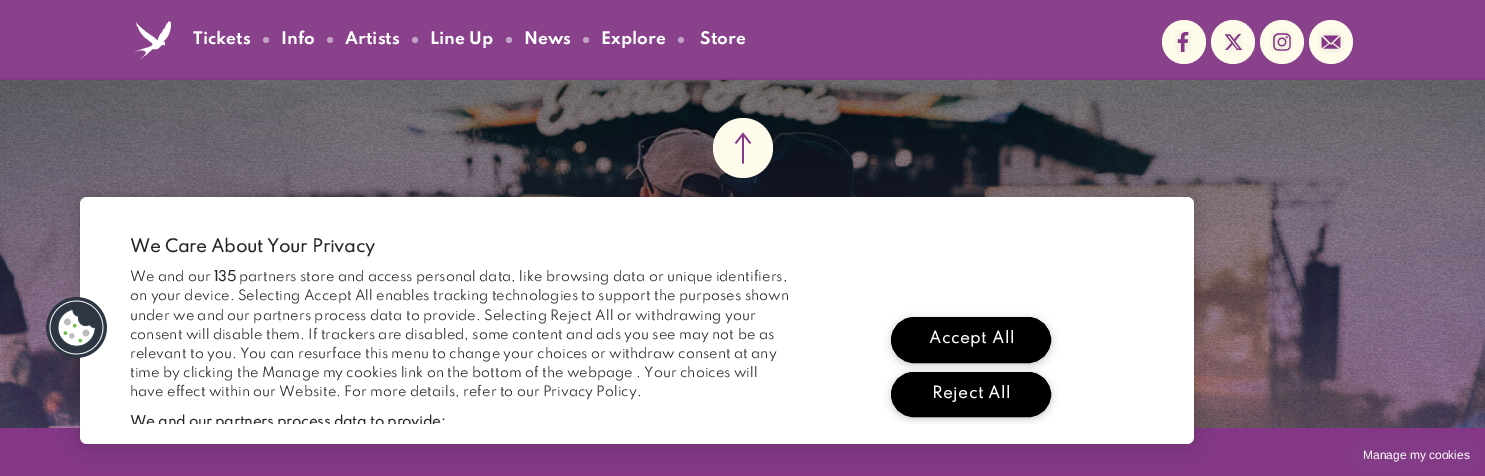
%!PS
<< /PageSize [1485 476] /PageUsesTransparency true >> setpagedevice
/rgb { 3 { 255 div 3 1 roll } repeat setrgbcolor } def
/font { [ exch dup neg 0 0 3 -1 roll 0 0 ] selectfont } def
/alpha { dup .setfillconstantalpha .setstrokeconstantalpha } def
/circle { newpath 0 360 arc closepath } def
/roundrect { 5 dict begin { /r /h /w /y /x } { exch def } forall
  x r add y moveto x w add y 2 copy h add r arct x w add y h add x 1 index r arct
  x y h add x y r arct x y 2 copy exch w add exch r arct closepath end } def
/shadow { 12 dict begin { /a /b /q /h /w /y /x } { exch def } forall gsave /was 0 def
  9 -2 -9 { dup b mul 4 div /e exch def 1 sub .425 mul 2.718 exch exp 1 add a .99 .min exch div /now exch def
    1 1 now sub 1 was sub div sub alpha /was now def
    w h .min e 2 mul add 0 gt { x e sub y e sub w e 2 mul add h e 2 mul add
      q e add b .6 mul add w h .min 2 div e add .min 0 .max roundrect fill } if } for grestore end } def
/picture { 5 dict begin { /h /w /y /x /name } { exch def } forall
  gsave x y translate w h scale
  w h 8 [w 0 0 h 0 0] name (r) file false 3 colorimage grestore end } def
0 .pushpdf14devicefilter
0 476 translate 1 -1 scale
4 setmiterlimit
255 251 235 rgb
0 0 1485 476 rectfill
gsave 0 78 moveto 1485 78 lineto 1485 428 lineto 0 428 lineto closepath clip newpath
<< /ShadingType 2 /ColorSpace /DeviceRGB /Coords [743 78 743 428] /Extend [true true] /Function << /FunctionType 2 /Domain [0 1] /C0 [0 0 0] /C1 [0.514 0.216 0.525] /N 1 >> >> shfill grestore
(img/6.rgb) 0 78 1485 350 picture
(img/7.rgb) 0 78 1485 350 picture
0.95 alpha
131 55 134 rgb
0 0 1485 80 rectfill
1 alpha
(img/1.rgb) 135 21 36 38 picture
196 160 197 rgb
266 40 3 circle fill
330 40 3 circle fill
415 40 3 circle fill
509 40 3 circle fill
586 40 3 circle fill
681 40 3 circle fill
255 251 235 rgb
1184 42 22 circle fill
(img/2.rgb) 1175 30 16 22 picture
1233 42 22 circle fill
(img/3.rgb) 1224 32 19 20 picture
1282 42 22 circle fill
(img/4.rgb) 1271 31 22 21 picture
1331 42 22 circle fill
(img/5.rgb) 1318 31 26 22 picture
743 148 30 circle fill
(img/8.rgb) 735 132 16 32 picture
131 55 134 rgb
0 428 1485 48 rectfill
0 0 0 rgb
80 197 1114 247 7 9 0.2 shadow
255 255 255 rgb
80 197 1114 247 7 roundrect fill
(img/9.rgb) 46 297 61 61 picture
153 153 153 rgb
894 322 154 40 20 5 1 shadow
0 0 0 rgb
891.5 317.5 159 45 22.5 roundrect gsave fill grestore
stroke
gsave
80 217 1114 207 rectclip
153 153 153 rgb
894 377 154 39 19.5 5 1 shadow
grestore
891.5 372.5 159 44 22 roundrect gsave fill grestore
stroke
131 59 135 rgb
1351 437 131 36 18 roundrect fill
/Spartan-Bold 15.5 font
255 255 255 rgb
[
  [(Tickets) 193 44]
  [(Info) 281 44]
  [(Artists) 345 44]
  [(Line Up) 430 44]
  [(News) 524 44]
  [(Explore) 601 44]
  [(Store) 700 44]
] { aload pop moveto show } forall
/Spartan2-Bold 16 font
38 38 38 rgb
130 252 moveto (We Care About Your Privacy) show
/Spartan-Regular 12.8 font
130 281 moveto (We and our) show
/Spartan2-Bold 12.8 font
214 281 moveto (135) show
/Spartan-Regular 12.8 font
[
  [(partners store and access personal data, like browsing data or unique identifiers,) 239 281]
  [(on your device. Selecting Accept All enables tracking technologies to support the purposes shown) 130 300]
  [(under we and our partners process data to provide. Selecting Reject All or withdrawing your) 130 320]
  [(consent will disable them. If trackers are disabled, some content and ads you see may not be as) 130 339]
  [(relevant to you. You can resurface this menu to change your choices or withdraw consent at any) 130 358]
  [(time by clicking the Manage my cookies link on the bottom of the webpage . Your choices will) 130 377]
  [(have effect within our Website. For more details, refer to our Privacy Policy.) 130 396]
] { aload pop moveto show } forall
gsave
80 217 1114 207 rectclip
/Spartan2-Bold 13 font
130 426 moveto (We and our partners process data to provide:) show
grestore
/Spartan2-Bold 14.5 font
255 255 255 rgb
929 343 moveto 0.75 0 (Accept All) ashow
932 398 moveto 0.75 0 (Reject All) ashow
/LiberationSans-Regular 12 font
1363 459 moveto (Manage my cookies) show
.poppdf14devicefilter showpage
